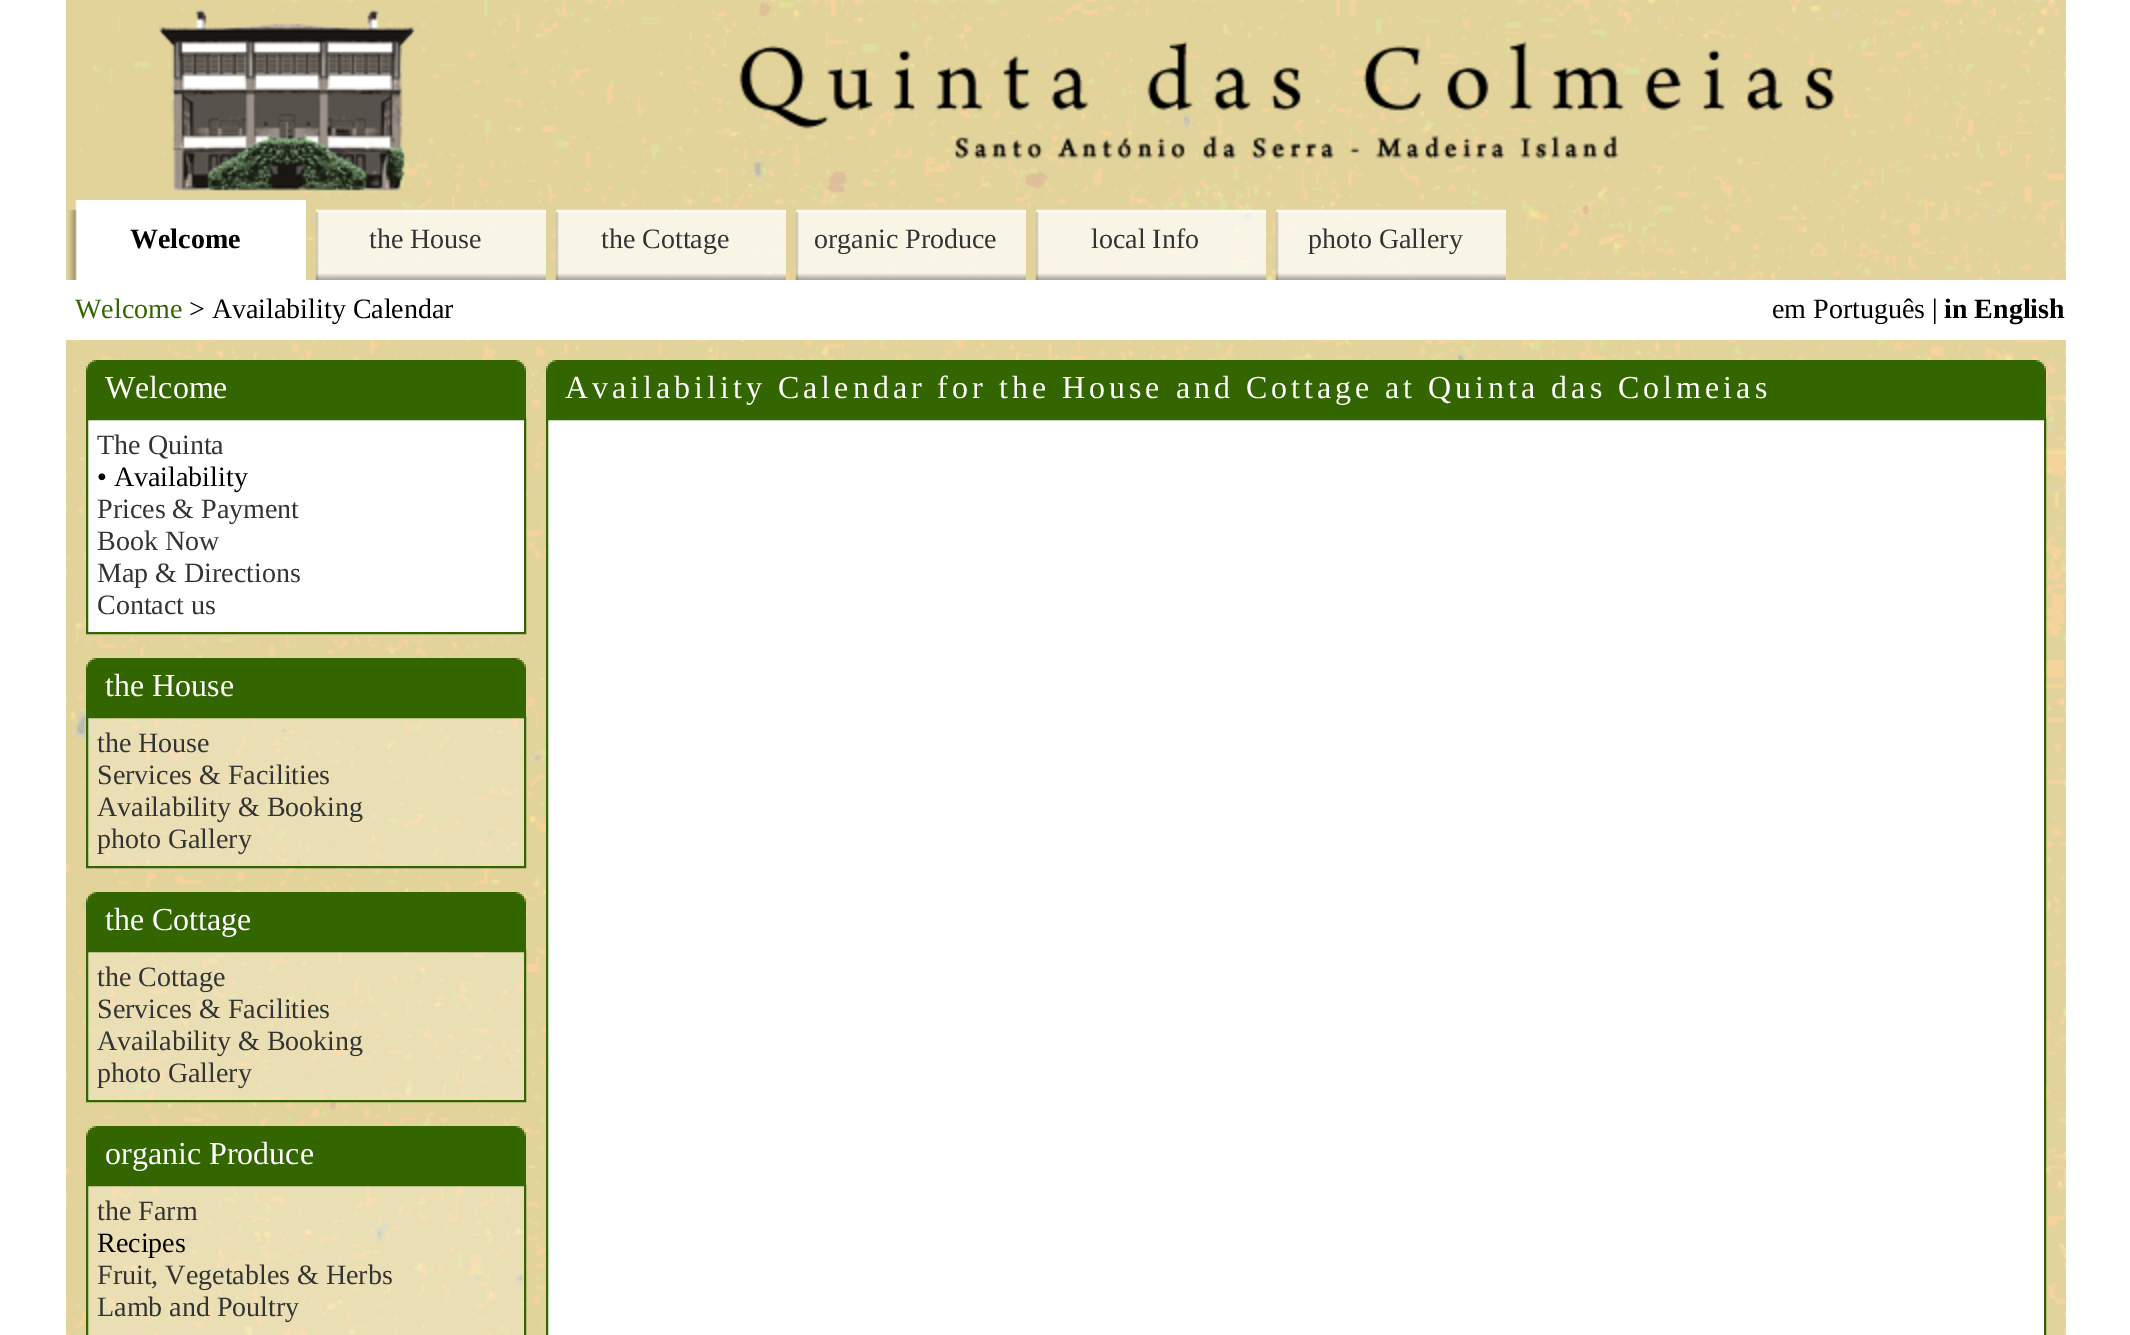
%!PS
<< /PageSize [2130 1335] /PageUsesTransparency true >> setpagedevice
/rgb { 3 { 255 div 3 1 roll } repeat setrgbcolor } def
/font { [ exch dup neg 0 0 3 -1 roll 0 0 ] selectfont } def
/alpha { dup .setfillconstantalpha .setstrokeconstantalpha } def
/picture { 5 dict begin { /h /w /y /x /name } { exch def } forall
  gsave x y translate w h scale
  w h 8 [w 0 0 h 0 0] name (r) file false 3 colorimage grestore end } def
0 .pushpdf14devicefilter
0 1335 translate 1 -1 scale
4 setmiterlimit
255 255 255 rgb
0 0 2130 1335 rectfill
(img/1.rgb) 66 0 2000 1335 picture
(img/2.rgb) 159 9 1676 182 picture
(img/3.rgb) 68 200 238 80 picture
(img/4.rgb) 315 209 231 71 picture
(img/5.rgb) 555 209 231 71 picture
(img/6.rgb) 795 209 231 71 picture
(img/7.rgb) 1035 209 231 71 picture
(img/8.rgb) 1275 209 231 71 picture
[
  [66 280 2000 60 255 255 255]
  [92 360 428 2 93 127 34]
  [518 360 2 2 147 159 78]
  [92 360 2 2 147 159 78]
  [96 360 420 2 51 102 0]
  [88 362 436 2 83 121 26]
  [522 362 2 2 204 192 124]
  [88 362 2 2 204 192 124]
  [92 362 428 2 51 102 0]
  [88 364 436 2 51 102 0]
  [522 364 2 2 83 121 26]
  [88 364 2 2 83 121 26]
  [86 366 440 4 51 102 0]
  [524 366 2 2 147 159 78]
  [86 366 2 2 147 159 78]
  [524 368 2 2 93 127 34]
  [86 368 2 2 93 127 34]
  [86 370 440 48 51 102 0]
] { aload pop rgb rectfill } forall
255 255 255 rgb
87 419 moveto 525 419 lineto 525 633 lineto 87 633 lineto closepath gsave fill grestore
51 102 0 rgb
2 setlinewidth
stroke
[
  [92 658 428 2 93 127 34]
  [518 658 2 2 147 159 78]
  [92 658 2 2 147 159 78]
  [96 658 420 2 51 102 0]
  [88 660 436 2 83 121 26]
  [522 660 2 2 204 192 124]
  [88 660 2 2 204 192 124]
  [92 660 428 2 51 102 0]
  [88 662 436 2 51 102 0]
  [522 662 2 2 83 121 26]
  [88 662 2 2 83 121 26]
  [86 664 440 4 51 102 0]
  [524 664 2 2 147 159 78]
  [86 664 2 2 147 159 78]
  [524 666 2 2 93 127 34]
  [86 666 2 2 93 127 34]
  [86 668 440 48 51 102 0]
] { aload pop rgb rectfill } forall
0.25 alpha
255 255 255 rgb
87 717 moveto 525 717 lineto 525 867 lineto 87 867 lineto closepath fill
1 alpha
51 102 0 rgb
87 717 moveto 525 717 lineto 525 867 lineto 87 867 lineto closepath stroke
[
  [92 892 428 2 93 127 34]
  [518 892 2 2 147 159 78]
  [92 892 2 2 147 159 78]
  [96 892 420 2 51 102 0]
  [88 894 436 2 83 121 26]
  [522 894 2 2 204 192 124]
  [88 894 2 2 204 192 124]
  [92 894 428 2 51 102 0]
  [88 896 436 2 51 102 0]
  [522 896 2 2 83 121 26]
  [88 896 2 2 83 121 26]
  [86 898 440 4 51 102 0]
  [524 898 2 2 147 159 78]
  [86 898 2 2 147 159 78]
  [524 900 2 2 93 127 34]
  [86 900 2 2 93 127 34]
  [86 902 440 48 51 102 0]
] { aload pop rgb rectfill } forall
0.25 alpha
255 255 255 rgb
87 951 moveto 525 951 lineto 525 1101 lineto 87 1101 lineto closepath fill
1 alpha
51 102 0 rgb
87 951 moveto 525 951 lineto 525 1101 lineto 87 1101 lineto closepath stroke
[
  [92 1126 428 2 93 127 34]
  [518 1126 2 2 147 159 78]
  [92 1126 2 2 147 159 78]
  [96 1126 420 2 51 102 0]
  [88 1128 436 2 83 121 26]
  [522 1128 2 2 204 192 124]
  [88 1128 2 2 204 192 124]
  [92 1128 428 2 51 102 0]
  [88 1130 436 2 51 102 0]
  [522 1130 2 2 83 121 26]
  [88 1130 2 2 83 121 26]
  [86 1132 440 4 51 102 0]
  [524 1132 2 2 147 159 78]
  [86 1132 2 2 147 159 78]
  [524 1134 2 2 93 127 34]
  [86 1134 2 2 93 127 34]
  [86 1136 440 48 51 102 0]
] { aload pop rgb rectfill } forall
0.25 alpha
255 255 255 rgb
87 1185 moveto 525 1185 lineto 525 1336 lineto 87 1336 lineto closepath fill
1 alpha
51 102 0 rgb
87 1185 moveto 525 1185 lineto 525 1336 lineto 87 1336 lineto closepath stroke
[
  [552 360 1488 2 93 127 34]
  [2038 360 2 2 147 159 78]
  [552 360 2 2 147 159 78]
  [556 360 1480 2 51 102 0]
  [548 362 1496 2 83 121 26]
  [2042 362 2 2 204 192 124]
  [548 362 2 2 204 192 124]
  [552 362 1488 2 51 102 0]
  [548 364 1496 2 51 102 0]
  [2042 364 2 2 83 121 26]
  [548 364 2 2 83 121 26]
  [546 366 1500 4 51 102 0]
  [2044 366 2 2 147 159 78]
  [546 366 2 2 147 159 78]
  [2044 368 2 2 93 127 34]
  [546 368 2 2 93 127 34]
  [546 370 1500 48 51 102 0]
] { aload pop rgb rectfill } forall
255 255 255 rgb
547 419 moveto 2045 419 lineto 2045 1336 lineto 547 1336 lineto closepath gsave fill grestore
51 102 0 rgb
stroke
/LiberationSerif-Bold 28 font
0 0 0 rgb
130 248 moveto (Welcome) show
/LiberationSerif-Regular 28 font
51 51 51 rgb
[
  [(the House) 369 248]
  [(the Cottage) 601 248]
  [(organic Produce) 814 248]
  [(local Info) 1091 248]
  [(photo Gallery) 1308 248]
] { aload pop moveto show } forall
51 102 0 rgb
75 318 moveto (Welcome) show
0 0 0 rgb
189 318 moveto (> Availability Calendar) show
1772 318 moveto (em Português |) show
/LiberationSerif-Bold 28 font
1944 318 moveto (in English) show
/LiberationSerif-Regular 32 font
255 255 255 rgb
105 398 moveto (Welcome) show
/LiberationSerif-Regular 28 font
51 51 51 rgb
97 454 moveto (The Quinta) show
0 0 0 rgb
97 486 moveto (• Availability) show
51 51 51 rgb
[
  [(Prices & Payment) 97 518]
  [(Book Now) 97 550]
  [(Map & Directions) 97 582]
  [(Contact us) 97 614]
] { aload pop moveto show } forall
/LiberationSerif-Regular 32 font
255 255 255 rgb
105 696 moveto (the House) show
/LiberationSerif-Regular 28 font
51 51 51 rgb
[
  [(the House) 97 752]
  [(Services & Facilities) 97 784]
  [(Availability & Booking) 97 816]
  [(photo Gallery) 97 848]
] { aload pop moveto show } forall
/LiberationSerif-Regular 32 font
255 255 255 rgb
105 930 moveto (the Cottage) show
/LiberationSerif-Regular 28 font
51 51 51 rgb
[
  [(the Cottage) 97 986]
  [(Services & Facilities) 97 1018]
  [(Availability & Booking) 97 1050]
  [(photo Gallery) 97 1082]
] { aload pop moveto show } forall
/LiberationSerif-Regular 32 font
255 255 255 rgb
105 1164 moveto (organic Produce) show
/LiberationSerif-Regular 28 font
51 51 51 rgb
97 1220 moveto (the Farm) show
0 0 0 rgb
97 1252 moveto (Recipes) show
51 51 51 rgb
97 1284 moveto (Fruit, Vegetables & Herbs) show
97 1316 moveto (Lamb and Poultry) show
/LiberationSerif-Regular 32 font
255 255 255 rgb
565 398 moveto 4 0 (Availability Calendar for the House and Cottage at Quinta das Colmeias) ashow
.poppdf14devicefilter showpage
